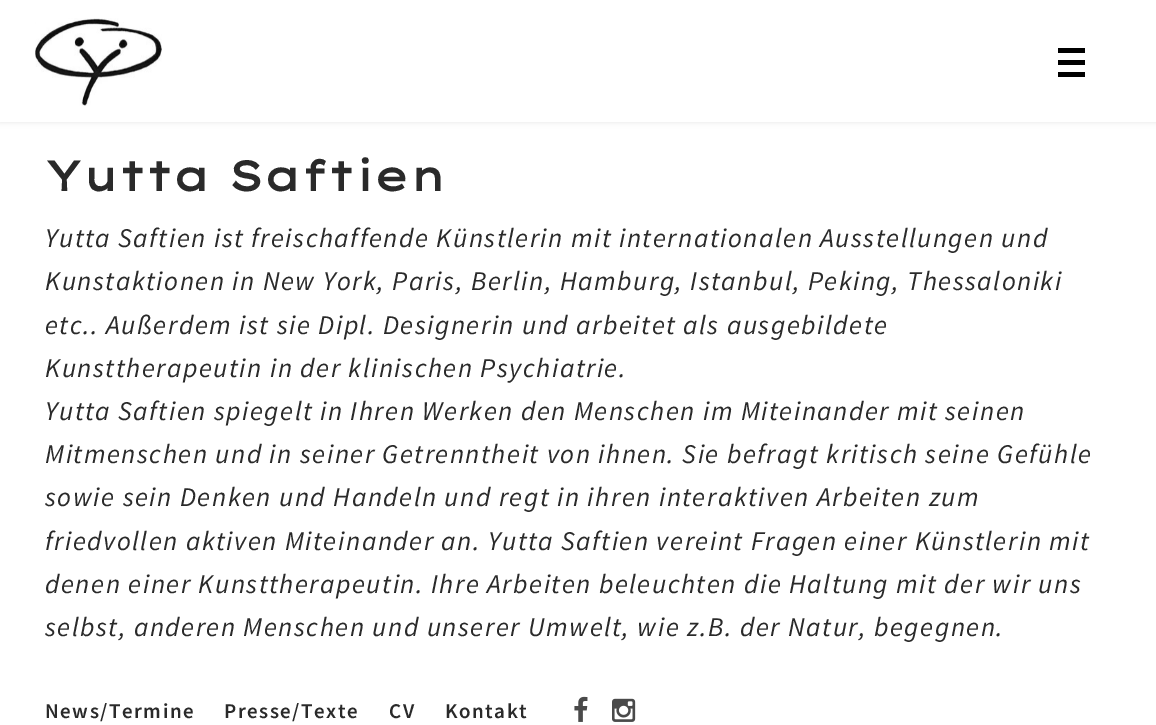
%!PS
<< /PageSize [1156 725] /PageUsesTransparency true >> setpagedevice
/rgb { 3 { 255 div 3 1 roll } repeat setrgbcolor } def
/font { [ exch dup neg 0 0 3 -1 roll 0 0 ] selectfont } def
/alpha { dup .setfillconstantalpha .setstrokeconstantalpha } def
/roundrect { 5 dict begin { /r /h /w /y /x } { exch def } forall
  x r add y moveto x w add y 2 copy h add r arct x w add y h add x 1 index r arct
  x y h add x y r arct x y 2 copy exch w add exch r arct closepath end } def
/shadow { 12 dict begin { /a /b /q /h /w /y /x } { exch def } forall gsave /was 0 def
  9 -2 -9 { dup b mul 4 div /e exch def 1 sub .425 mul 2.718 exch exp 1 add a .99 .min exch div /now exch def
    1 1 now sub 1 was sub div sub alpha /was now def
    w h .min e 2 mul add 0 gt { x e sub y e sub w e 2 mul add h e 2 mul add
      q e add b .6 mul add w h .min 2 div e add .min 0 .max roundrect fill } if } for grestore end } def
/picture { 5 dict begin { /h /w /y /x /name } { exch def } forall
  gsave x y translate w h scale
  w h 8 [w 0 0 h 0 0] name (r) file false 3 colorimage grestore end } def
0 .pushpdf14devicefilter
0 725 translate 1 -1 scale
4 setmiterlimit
255 255 255 rgb
0 0 1156 725 rectfill
0 0 0 rgb
0 2 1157 120 0 3 0.1 shadow
255 255 255 rgb
0 0 1156 122 rectfill
(img/1.rgb) 35 18 127 88 picture
[
  [1058 48 27 5 0 0 0]
  [1058 60 27 5 0 0 0]
  [1058 72 27 5 0 0 0]
] { aload pop rgb rectfill } forall
(img/2.rgb) 574 696 14 26 picture
(img/3.rgb) 612 698 24 24 picture
/LexendPeta-Bold 42 font
42 42 42 rgb
45 191 moveto (Yutta Saftien) show
/SourceSansPro-Italic 27 font
45 247 moveto 1.5 0 (Yutta Saftien ist freischaffende Künstlerin mit internationalen Ausstellungen und) ashow
45 290 moveto 1.5 0 (Kunstaktionen in New York, Paris, Berlin, Hamburg, Istanbul, Peking, Thessaloniki) ashow
45 334 moveto 1.5 0 (etc.. Außerdem ist sie Dipl. Designerin und arbeitet als ausgebildete) ashow
45 377 moveto 1.5 0 (Kunsttherapeutin in der klinischen Psychiatrie.) ashow
45 420 moveto 1.5 0 (Yutta Saftien spiegelt in Ihren Werken den Menschen im Miteinander mit seinen) ashow
45 463 moveto 1.5 0 (Mitmenschen und in seiner Getrenntheit von ihnen. Sie befragt kritisch seine Gefühle) ashow
45 506 moveto 1.5 0 (sowie sein Denken und Handeln und regt in ihren interaktiven Arbeiten zum) ashow
45 550 moveto 1.5 0 (friedvollen aktiven Miteinander an. Yutta Saftien vereint Fragen einer Künstlerin mit) ashow
45 593 moveto 1.5 0 (denen einer Kunsttherapeutin. Ihre Arbeiten beleuchten die Haltung mit der wir uns) ashow
45 636 moveto 1.5 0 (selbst, anderen Menschen und unserer Umwelt, wie z.B. der Natur, begegnen.) ashow
/SourceSansPro-SemiBold 21 font
45 718 moveto 1.5 0 (News/Termine) ashow
224 718 moveto 1.5 0 (Presse/Texte) ashow
389 718 moveto 1.5 0 (CV) ashow
445 718 moveto 1.5 0 (Kontakt) ashow
.poppdf14devicefilter showpage
